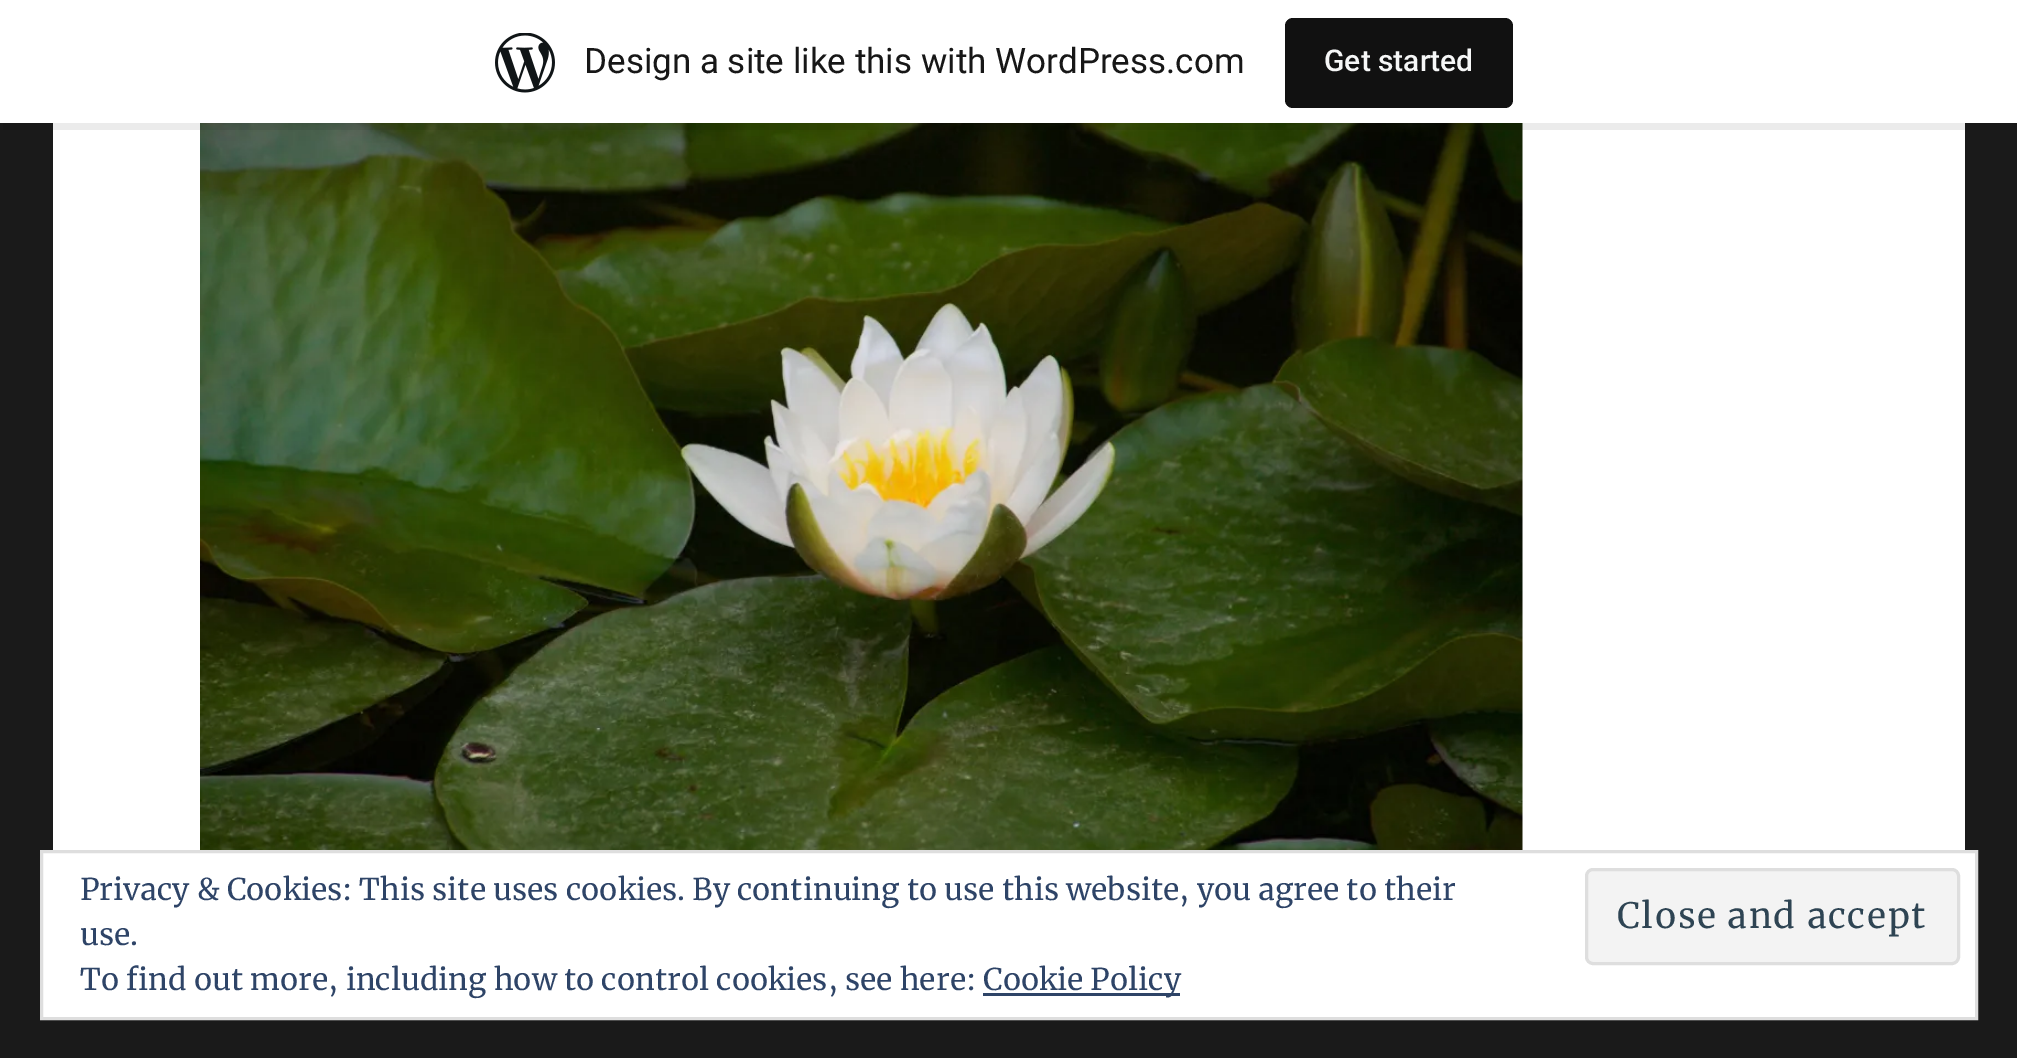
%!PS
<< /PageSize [2017 1058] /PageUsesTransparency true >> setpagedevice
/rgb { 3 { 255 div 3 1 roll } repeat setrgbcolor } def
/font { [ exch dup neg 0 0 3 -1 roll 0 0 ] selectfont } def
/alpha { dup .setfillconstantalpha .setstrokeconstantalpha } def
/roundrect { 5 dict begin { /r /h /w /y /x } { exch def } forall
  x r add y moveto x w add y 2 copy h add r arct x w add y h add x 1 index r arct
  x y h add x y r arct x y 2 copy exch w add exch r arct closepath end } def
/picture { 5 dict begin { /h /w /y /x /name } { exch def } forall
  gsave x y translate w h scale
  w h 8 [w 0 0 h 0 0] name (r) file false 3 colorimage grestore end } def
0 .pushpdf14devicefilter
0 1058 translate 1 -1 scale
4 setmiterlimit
26 26 26 rgb
0 0 2017 1058 rectfill
255 255 255 rgb
53 123 1912 727 rectfill
(img/2.rgb) 200 123 1323 727 picture
0.08 alpha
0 0 0 rgb
3 122 moveto 3 130 lineto 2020 130 lineto 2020 8 lineto 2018 8 lineto 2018 122 lineto closepath fill
1 alpha
255 255 255 rgb
0 0 2017 123 rectfill
(img/1.rgb) 495 33 60 60 picture
17 17 17 rgb
1285 18 228 90 8 roundrect fill
255 255 255 rgb
41.5 851.5 moveto 1976.5 851.5 lineto 1976.5 1018.5 lineto 41.5 1018.5 lineto closepath gsave fill grestore
222 222 222 rgb
3 setlinewidth
stroke
243 243 243 rgb
1586.5 869.5 372 94 6.5 roundrect gsave fill grestore
222 222 222 rgb
stroke
46 68 103 rgb
983 993 197 3 rectfill
/Roboto-Regular 35 font
23 23 23 rgb
584 73 moveto (Design a site like this with WordPress.com) show
/Roboto-Medium 30 font
246 247 247 rgb
1324 71 moveto (Get started) show
/Merriweather-Regular 30 font
46 68 103 rgb
80 900 moveto (Privacy & Cookies: This site uses cookies. By continuing to use this website, you agree to their) show
80 945 moveto (use.) show
/Merriweather-Regular 35 font
46 68 83 rgb
1617 928 moveto 1.6 0 (Close and accept) ashow
/Merriweather-Regular 30 font
46 68 103 rgb
80 990 moveto (To find out more, including how to control cookies, see here:) show
983 990 moveto (Cookie Policy) show
.poppdf14devicefilter showpage
